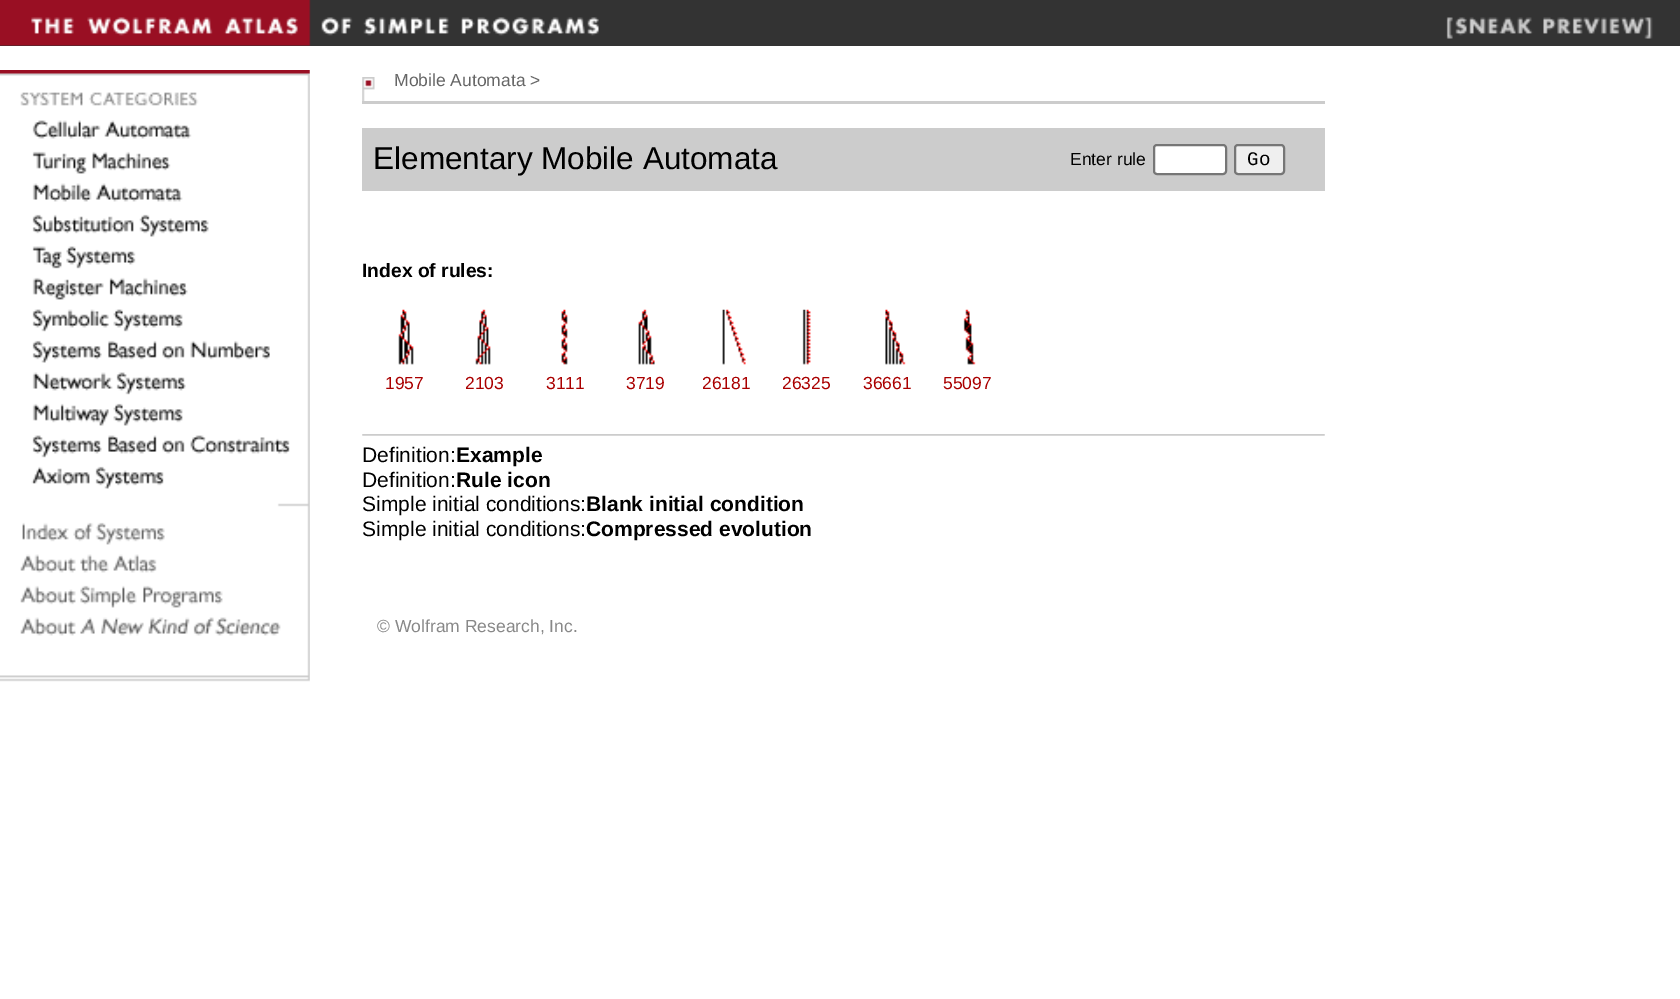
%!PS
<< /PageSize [1680 999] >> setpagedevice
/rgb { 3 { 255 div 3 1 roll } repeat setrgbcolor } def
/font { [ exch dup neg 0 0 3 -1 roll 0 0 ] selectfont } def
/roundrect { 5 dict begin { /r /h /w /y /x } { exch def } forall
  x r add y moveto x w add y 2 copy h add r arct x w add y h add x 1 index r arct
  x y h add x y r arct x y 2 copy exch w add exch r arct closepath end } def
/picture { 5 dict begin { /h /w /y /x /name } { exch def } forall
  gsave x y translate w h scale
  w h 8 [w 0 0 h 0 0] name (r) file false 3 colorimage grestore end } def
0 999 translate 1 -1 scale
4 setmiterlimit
255 255 255 rgb
0 0 1680 999 rectfill
51 51 51 rgb
0 0 1680 46 rectfill
(img/1.rgb) 0 0 599 46 picture
(img/2.rgb) 1446 17 207 22 picture
(img/3.rgb) 0 70 310 612 picture
(img/4.rgb) 362 77 13 24 picture
204 204 204 rgb
362 101 963 3 rectfill
362 128 963 63 rectfill
255 255 255 rgb
1154 145 72 29 3 roundrect gsave fill grestore
118 118 118 rgb
2 setlinewidth
stroke
239 239 239 rgb
1235 145 49 29 3 roundrect gsave fill grestore
118 118 118 rgb
stroke
(img/5.rgb) 398 309 16 56 picture
(img/6.rgb) 475 309 16 56 picture
(img/7.rgb) 561 309 7 56 picture
(img/8.rgb) 638 309 17 56 picture
(img/9.rgb) 722 309 24 56 picture
(img/10.rgb) 802 309 9 56 picture
(img/11.rgb) 885 309 21 56 picture
(img/12.rgb) 963 309 13 56 picture
(img/13.rgb) 362 434 963 2 picture
/LiberationSans-Regular 17.5 font
102 102 102 rgb
394 86 moveto (Mobile Automata >) show
/LiberationSans-Regular 31.5 font
0 0 0 rgb
373 169 moveto (Elementary Mobile Automata) show
/LiberationSans-Regular 17.5 font
1070 165 moveto (Enter rule) show
/LiberationMono-Regular 19.25 font
1247 165 moveto (Go) show
/LiberationSans-Bold 19.25 font
362 277 moveto (Index of rules:) show
/LiberationSans-Regular 17.5 font
170 0 0 rgb
[
  [(1957) 385 389]
  [(2103) 465 389]
  [(3111) 546 389]
  [(3719) 626 389]
  [(26181) 702 389]
  [(26325) 782 389]
  [(36661) 863 389]
  [(55097) 943 389]
] { aload pop moveto show } forall
/LiberationSans-Regular 21 font
0 0 0 rgb
362 462 moveto (Definition:) show
/LiberationSans-Bold 21 font
456 462 moveto (Example) show
/LiberationSans-Regular 21 font
362 487 moveto (Definition:) show
/LiberationSans-Bold 21 font
456 487 moveto (Rule icon) show
/LiberationSans-Regular 21 font
362 511 moveto (Simple initial conditions:) show
/LiberationSans-Bold 21 font
586 511 moveto (Blank initial condition) show
/LiberationSans-Regular 21 font
362 536 moveto (Simple initial conditions:) show
/LiberationSans-Bold 21 font
586 536 moveto (Compressed evolution) show
/LiberationSans-Regular 17.5 font
136 136 136 rgb
377 632 moveto (© Wolfram Research, Inc.) show
showpage
